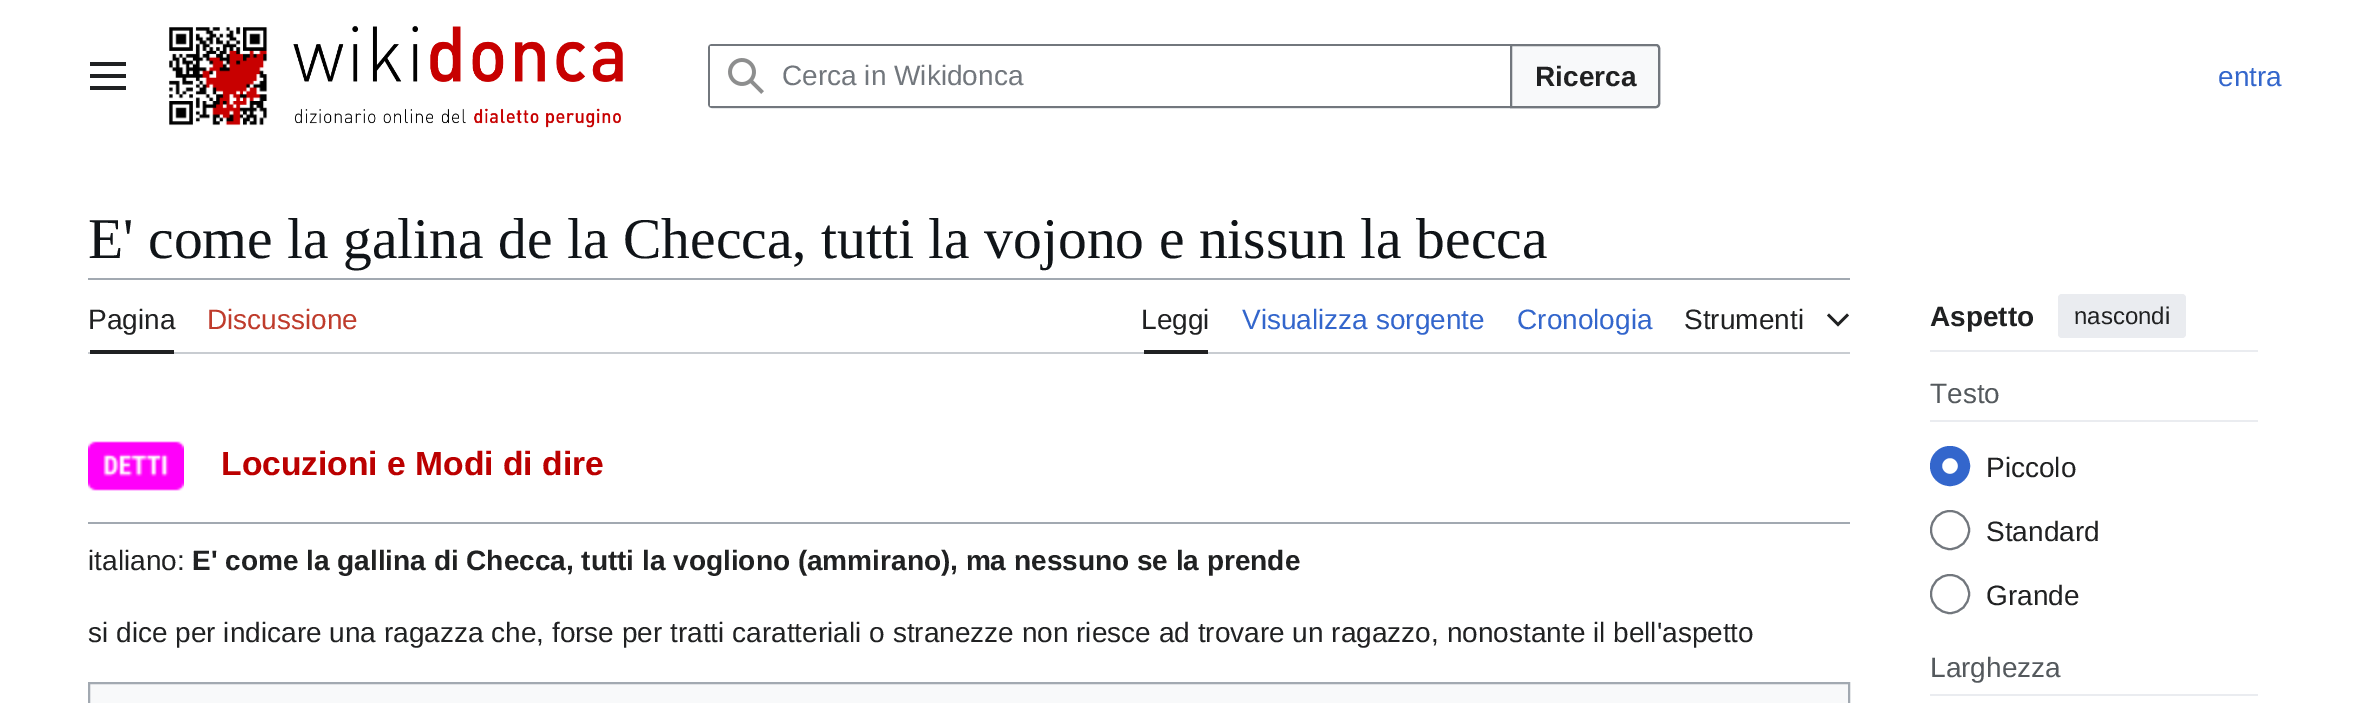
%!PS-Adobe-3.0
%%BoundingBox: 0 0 2377 703
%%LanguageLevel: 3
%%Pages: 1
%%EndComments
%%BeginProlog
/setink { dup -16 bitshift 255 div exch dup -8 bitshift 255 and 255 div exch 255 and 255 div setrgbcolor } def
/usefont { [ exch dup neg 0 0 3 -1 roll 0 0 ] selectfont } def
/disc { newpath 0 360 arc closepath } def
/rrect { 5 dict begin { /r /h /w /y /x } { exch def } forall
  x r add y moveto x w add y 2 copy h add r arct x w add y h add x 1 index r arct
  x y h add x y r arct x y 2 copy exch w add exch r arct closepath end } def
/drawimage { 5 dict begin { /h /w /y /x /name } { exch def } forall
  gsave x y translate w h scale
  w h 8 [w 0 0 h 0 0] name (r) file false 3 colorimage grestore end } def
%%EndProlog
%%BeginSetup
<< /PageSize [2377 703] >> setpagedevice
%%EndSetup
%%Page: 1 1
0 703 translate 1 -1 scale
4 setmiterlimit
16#FFFFFF setink
0 0 2377 703 rectfill
(img1.raw) 90 62 36 28 drawimage
(img2.raw) 169 27 99 99 drawimage
(img3.raw) 293 26 330 56 drawimage
(img4.raw) 294 108 327 20 drawimage
16#A2A9B1 setink
2 setlinewidth
709 45 950 62 3 rrect stroke
16#F8F9FA setink
1511 45 moveto 1656 45 lineto 1657.5 45 1659 46.5 1659 48 curveto 1659 104 lineto 1659 105.5 1657.5 107 1656 107 curveto 1511 107 lineto closepath gsave fill grestore
16#72777D setink
stroke
16#FFFFFF setink
712 44 moveto 1512 44 lineto 1512 108 lineto 712 108 lineto 710 108 708 106 708 104 curveto 708 48 lineto 708 46 710 44 712 44 curveto closepath fill
16#72777D setink
712 44 moveto 710 44 708 46 708 48 curveto 708 104 lineto 708 106 710 108 712 108 curveto 1512 108 lineto 1512 44 lineto closepath 710 46 moveto 710 106 lineto 1510 106 lineto 1510 46 lineto closepath eofill
(img5.raw) 728 58 36 36 drawimage
/LiberationSans-Regular 28 usefont
782 85 moveto (Cerca in Wikidonca) show
/LiberationSans-Bold 28 usefont
16#202122 setink
1535 86 moveto (Ricerca) show
/LiberationSans-Regular 28 usefont
16#3366CC setink
2218 86 moveto (entra) show
/LiberationSerif-Regular 57.6 usefont
16#101418 setink
88 258 moveto (E' come la galina de la Checca, tutti la vojono e nissun la becca) show
[
    [88 278 1762 2 16#A2A9B1]
    [88 352 1762 2 16#C8CCD1]
    [90 350 84 4 16#202122]
] { aload pop setink rectfill } forall
/LiberationSans-Regular 28 usefont
88 329 moveto (Pagina) show
16#BF3C2C setink
207 329 moveto (Discussione) show
16#202122 setink
1144 350 64 4 rectfill
1141 329 moveto (Leggi) show
16#3366CC setink
1242 329 moveto (Visualizza sorgente) show
1517 329 moveto (Cronologia) show
16#202122 setink
1684 329 moveto (Strumenti) show
1847 313.5 moveto 1838 322.5 lineto 1829 313.5 lineto 1827 315.5 lineto 1838 326.5 lineto 1849 315.5 lineto closepath fill
16#EAECF0 setink
1930 350 328 2 rectfill
/LiberationSans-Bold 28 usefont
16#202122 setink
1930 326 moveto (Aspetto) show
16#EAECF0 setink
2058 294 128 44 4 rrect fill
/LiberationSans-Regular 24 usefont
16#202122 setink
2074 324 moveto (nascondi) show
16#EAECF0 setink
1930 420 328 2 rectfill
/LiberationSans-Regular 28 usefont
16#54595D setink
1930 403 moveto (Testo) show
16#3366CC setink
12 setlinewidth
1950 466 14 disc stroke
16#202122 setink
1986 477 moveto (Piccolo) show
16#72777D setink
2 setlinewidth
1950 530 19 disc stroke
16#202122 setink
1986 541 moveto (Standard) show
16#72777D setink
1950 594 19 disc stroke
16#202122 setink
1986 605 moveto (Grande) show
16#EAECF0 setink
1930 694 328 2 rectfill
16#54595D setink
1930 677 moveto (Larghezza) show
(img6.raw) 88 441 96 50 drawimage
/LiberationSans-Bold 33.6 usefont
16#BB0000 setink
221 475 moveto (Locuzioni e Modi di dire) show
16#A2A9B1 setink
88 522 1762 2 rectfill
/LiberationSans-Regular 28 usefont
16#202122 setink
88 570 moveto (italiano:) show
/LiberationSans-Bold 28 usefont
192 570 moveto (E' come la gallina di Checca, tutti la vogliono \(ammirano\), ma nessuno se la prende) show
/LiberationSans-Regular 28 usefont
88 642 moveto (si dice per indicare una ragazza che, forse per tratti caratteriali o stranezze non riesce ad trovare un ragazzo, nonostante il bell'aspetto) show
16#F8F9FA setink
89 683 moveto 1849 683 lineto 1849 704 lineto 89 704 lineto closepath gsave fill grestore
16#A2A9B1 setink
stroke
showpage
%%EOF
